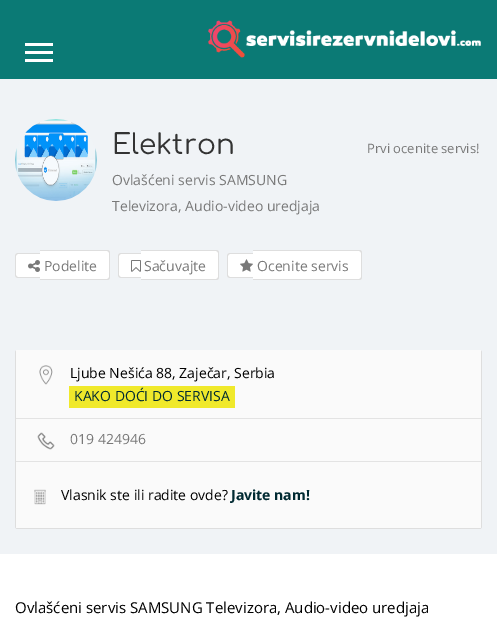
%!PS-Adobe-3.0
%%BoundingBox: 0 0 497 637
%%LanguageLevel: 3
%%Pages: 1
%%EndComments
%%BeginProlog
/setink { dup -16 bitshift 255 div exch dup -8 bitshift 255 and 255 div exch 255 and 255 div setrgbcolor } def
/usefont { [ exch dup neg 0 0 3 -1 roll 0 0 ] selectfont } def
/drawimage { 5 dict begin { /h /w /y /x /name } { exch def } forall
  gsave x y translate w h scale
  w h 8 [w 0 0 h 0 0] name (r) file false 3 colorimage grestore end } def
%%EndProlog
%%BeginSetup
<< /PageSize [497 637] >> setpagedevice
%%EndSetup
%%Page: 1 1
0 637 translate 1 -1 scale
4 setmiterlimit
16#FFFFFF setink
0 0 497 637 rectfill
[
    [0 0 497 79 16#0B7A75]
    [25 43 28 3 16#FFFFFF]
    [25 51 28 3 16#FFFFFF]
    [25 59 28 3 16#FFFFFF]
] { aload pop setink rectfill } forall
(img1.raw) 208 20 273 38 drawimage
16#F0F3F6 setink
0 79 497 475 rectfill
(img2.raw) 15 119 82 82 drawimage
/Comfortaa-Regular 28 usefont
16#333333 setink
112 154 moveto (Elektron) show
/OpenSans-Regular 14 usefont
16#797979 setink
112 185 moveto (Ovlašćeni servis SAMSUNG) show
112 211 moveto (Televizora, Audio-video uredjaja) show
/OpenSans-Regular 13 usefont
367 153 moveto (Prvi ocenite servis!) show
16#FFFFFF setink
18 253 moveto 40 253 lineto 40 278 lineto 18 278 lineto 16.5 278 15 276.5 15 275 curveto 15 256 lineto 15 254.5 16.5 253 18 253 curveto closepath fill
16#DEDEDE setink
18 253 moveto 40 253 lineto 40 278 lineto 18 278 lineto 16.5 278 15 276.5 15 275 curveto 15 256 lineto 15 254.5 16.5 253 18 253 curveto closepath 18 254 moveto 40 254 lineto 40 277 lineto 18 277 lineto 17 277 16 276 16 275 curveto 16 256 lineto 16 255 17 254 18 254 curveto closepath eofill
16#FFFFFF setink
40 250 moveto 107 250 lineto 108.5 250 110 251.5 110 253 curveto 110 277 lineto 110 278.5 108.5 280 107 280 curveto 40 280 lineto closepath fill
16#DEDEDE setink
40 250 moveto 107 250 lineto 109 250 110 251 110 253 curveto 110 277 lineto 110 279 109 280 107 280 curveto 40 280 lineto closepath 40 251 moveto 107 251 lineto 108 251 109 252 109 253 curveto 109 277 lineto 109 278 108 279 107 279 curveto 40 279 lineto closepath eofill
(img3.raw) 28 260 12 12 drawimage
/OpenSans-Regular 14 usefont
16#797979 setink
44 271 moveto (Podelite) show
16#FFFFFF setink
121 253 moveto 141 253 lineto 141 278 lineto 121 278 lineto 119.5 278 118 276.5 118 275 curveto 118 256 lineto 118 254.5 119.5 253 121 253 curveto closepath fill
16#DEDEDE setink
121 253 moveto 141 253 lineto 141 278 lineto 121 278 lineto 119.5 278 118 276.5 118 275 curveto 118 256 lineto 118 254.5 119.5 253 121 253 curveto closepath 121 254 moveto 141 254 lineto 141 277 lineto 121 277 lineto 120 277 119 276 119 275 curveto 119 256 lineto 119 255 120 254 121 254 curveto closepath eofill
16#FFFFFF setink
141 250 moveto 216 250 lineto 217.5 250 219 251.5 219 253 curveto 219 277 lineto 219 278.5 217.5 280 216 280 curveto 141 280 lineto closepath fill
16#DEDEDE setink
141 250 moveto 216 250 lineto 218 250 219 251 219 253 curveto 219 277 lineto 219 279 218 280 216 280 curveto 141 280 lineto closepath 141 251 moveto 216 251 lineto 217 251 218 252 218 253 curveto 218 277 lineto 218 278 217 279 216 279 curveto 141 279 lineto closepath eofill
(img4.raw) 131 260 10 12 drawimage
16#797979 setink
144 271 moveto (Sačuvajte) show
16#FFFFFF setink
230 253 moveto 253 253 lineto 253 278 lineto 230 278 lineto 228.5 278 227 276.5 227 275 curveto 227 256 lineto 227 254.5 228.5 253 230 253 curveto closepath fill
16#DEDEDE setink
230 253 moveto 253 253 lineto 253 278 lineto 230 278 lineto 228.5 278 227 276.5 227 275 curveto 227 256 lineto 227 254.5 228.5 253 230 253 curveto closepath 230 254 moveto 253 254 lineto 253 277 lineto 230 277 lineto 229 277 228 276 228 275 curveto 228 256 lineto 228 255 229 254 230 254 curveto closepath eofill
16#FFFFFF setink
253 250 moveto 359 250 lineto 360.5 250 362 251.5 362 253 curveto 362 277 lineto 362 278.5 360.5 280 359 280 curveto 253 280 lineto closepath fill
16#DEDEDE setink
253 250 moveto 359 250 lineto 361 250 362 251 362 253 curveto 362 277 lineto 362 279 361 280 359 280 curveto 253 280 lineto closepath 253 251 moveto 359 251 lineto 360 251 361 252 361 253 curveto 361 277 lineto 361 278 360 279 359 279 curveto 253 279 lineto closepath eofill
(img5.raw) 240 259 13 13 drawimage
16#797979 setink
257 271 moveto (Ocenite servis) show
16#DEDEDE setink
18 350 moveto 479 350 lineto 481 350 482 351 482 353 curveto 482 526 lineto 482 528 481 529 479 529 curveto 18 529 lineto 16 529 15 528 15 526 curveto 15 353 lineto 15 351 16 350 18 350 curveto closepath 18 350 moveto 479 350 lineto 480 350 481 351 481 353 curveto 481 526 lineto 481 527 480 528 479 528 curveto 18 528 lineto 17 528 16 527 16 526 curveto 16 353 lineto 16 351 17 350 18 350 curveto closepath eofill
16#FAFAFA setink
16 350 465 68 rectfill
16#E3E3E3 setink
16 418 465 1 rectfill
(img6.raw) 39 365 14 20 drawimage
16#000000 setink
70 378 moveto (Ljube Nešića 88, Zaječar, Serbia) show
16#F0E92B setink
69 386 166 22 rectfill
16#002A32 setink
74 401 moveto (KAKO DOĆI DO SERVISA) show
16#FAFAFA setink
16 419 465 42 rectfill
(img7.raw) 37 432 18 18 drawimage
16#797979 setink
70 444 moveto (019 424946) show
16#FAFAFA setink
16 462 465 66 rectfill
16#E3E3E3 setink
16 461 465 1 rectfill
(img8.raw) 34 489 12 16 drawimage
16#000000 setink
61 500 moveto (Vlasnik ste ili radite ovde?) show
/OpenSans-Bold 14 usefont
16#002A32 setink
231 500 moveto (Javite nam!) show
/OpenSans-Regular 15 usefont
16#000000 setink
15 613 moveto (Ovlašćeni servis SAMSUNG Televizora, Audio-video uredjaja) show
showpage
%%EOF
